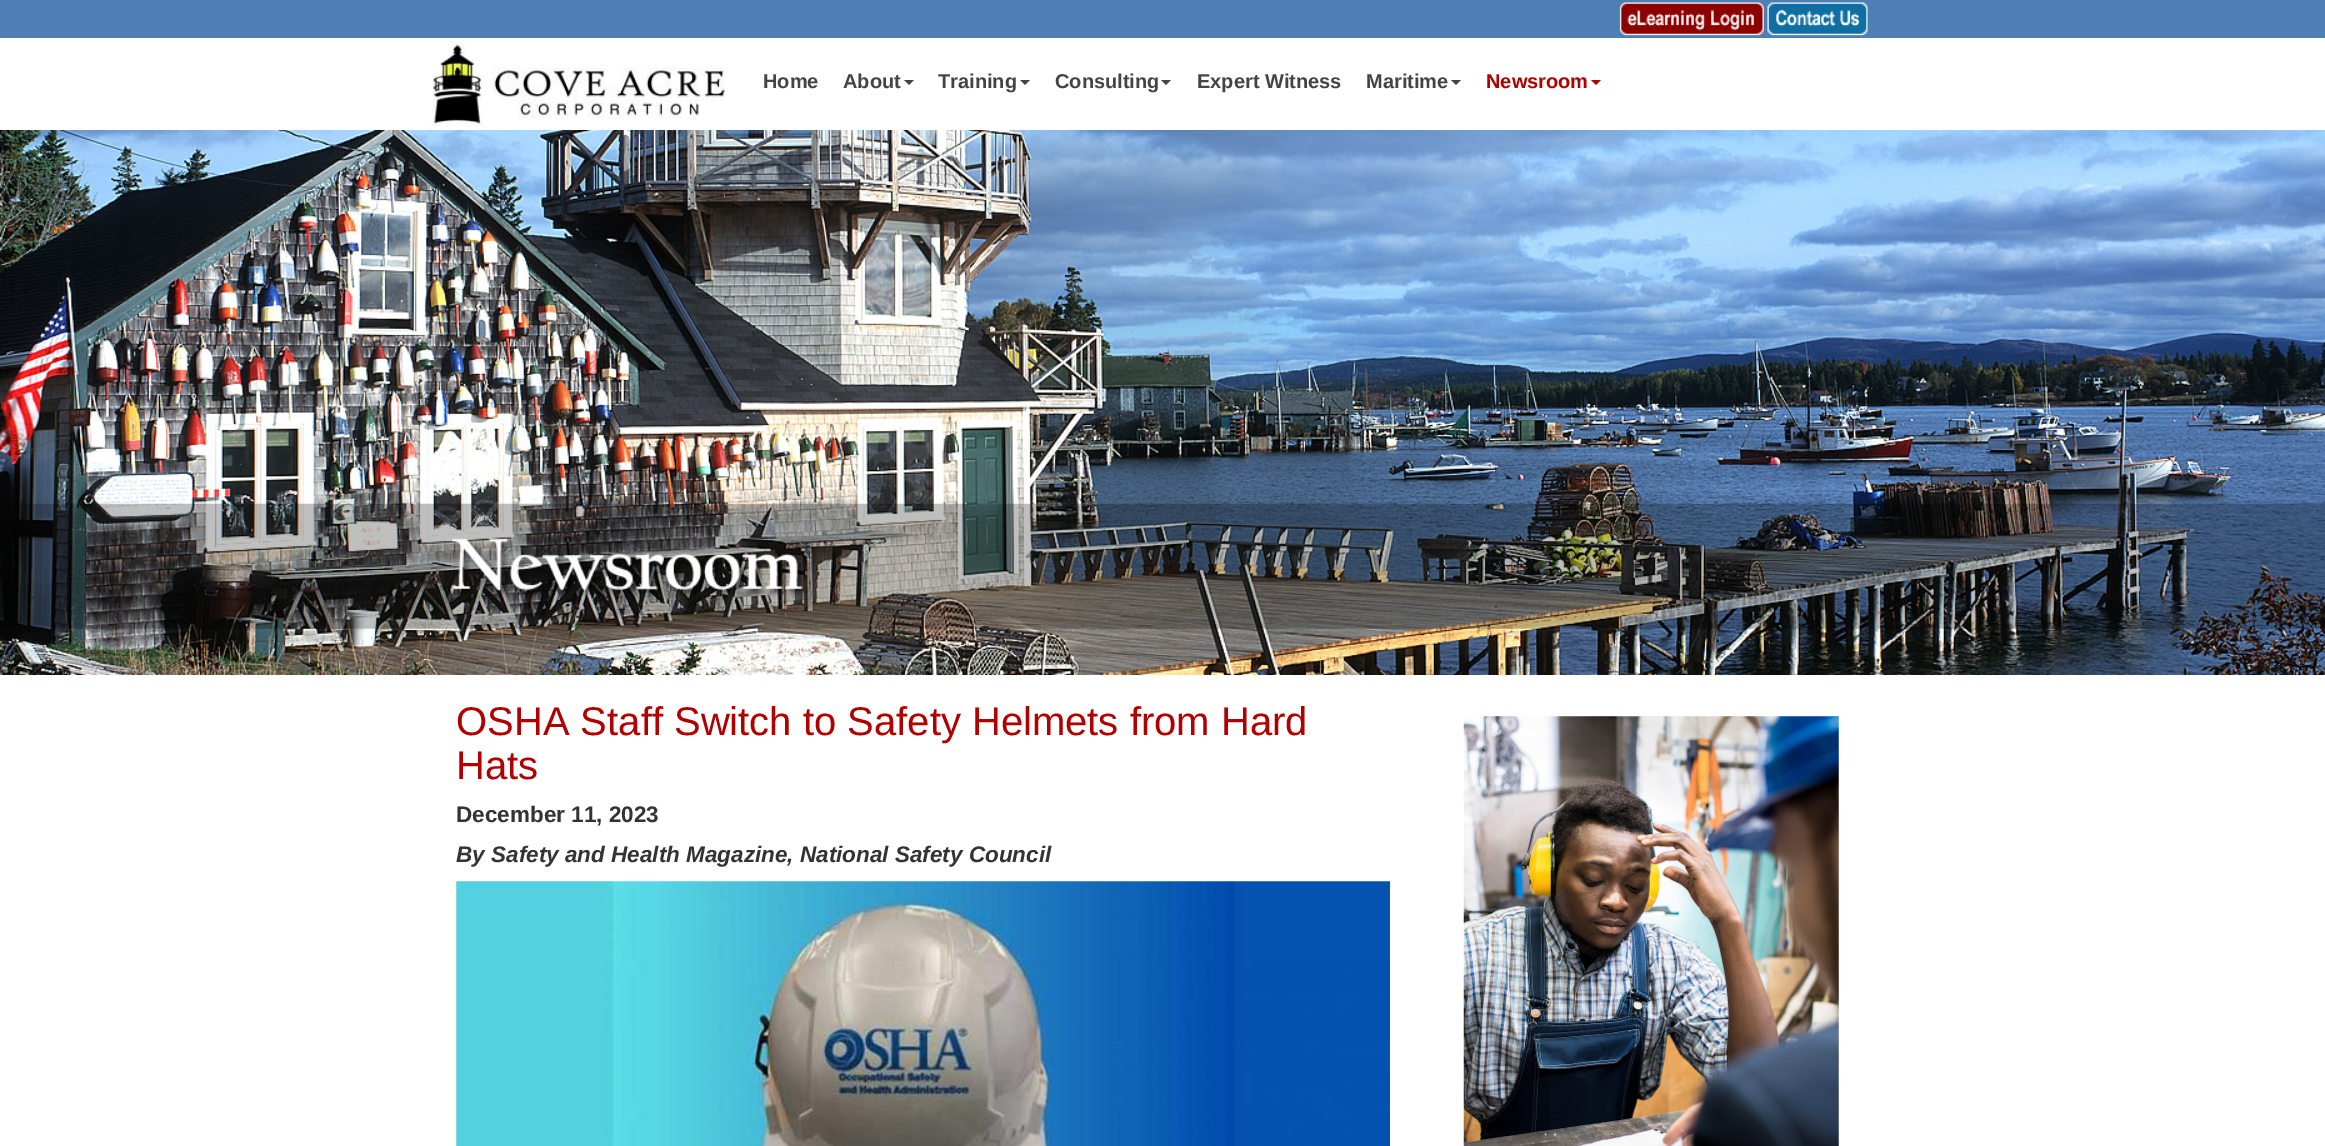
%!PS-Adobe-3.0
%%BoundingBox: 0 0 2325 1146
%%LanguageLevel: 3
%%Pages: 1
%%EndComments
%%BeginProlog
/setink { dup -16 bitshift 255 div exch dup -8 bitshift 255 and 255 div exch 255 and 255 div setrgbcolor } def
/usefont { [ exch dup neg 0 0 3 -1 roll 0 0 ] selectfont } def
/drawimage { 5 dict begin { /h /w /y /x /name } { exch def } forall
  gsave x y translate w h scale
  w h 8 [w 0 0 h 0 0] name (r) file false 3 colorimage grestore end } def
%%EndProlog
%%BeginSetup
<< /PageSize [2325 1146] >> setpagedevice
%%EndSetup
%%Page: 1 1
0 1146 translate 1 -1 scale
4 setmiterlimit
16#FFFFFF setink
0 0 2325 1146 rectfill
16#4D7EB4 setink
0 0 2325 38 rectfill
(img1.raw) 1619 2 249 34 drawimage
(img2.raw) 431 41 294 87 drawimage
/LiberationSans-Bold 20 usefont
16#444444 setink
763 88 moveto (Home) show
843 88 moveto (About) show
904 80 moveto 914 80 lineto 909 85 lineto closepath fill
938 88 moveto (Training) show
1020 80 moveto 1030 80 lineto 1025 85 lineto closepath fill
1055 88 moveto (Consulting) show
1161 80 moveto 1171 80 lineto 1166 85 lineto closepath fill
1197 88 moveto (Expert Witness) show
1366 88 moveto (Maritime) show
1451 80 moveto 1461 80 lineto 1456 85 lineto closepath fill
16#B20000 setink
1486 88 moveto (Newsroom) show
1591 80 moveto 1601 80 lineto 1596 85 lineto closepath fill
(img3.raw) 0 130 2325 545 drawimage
/LiberationSans-Regular 40 usefont
456 735 moveto (OSHA Staff Switch to Safety Helmets from Hard) show
456 779 moveto (Hats) show
/LiberationSans-Bold 22.5 usefont
16#333333 setink
456 822 moveto (December 11, 2023) show
/LiberationSans-BoldItalic 22.5 usefont
456 862 moveto (By Safety and Health Magazine, National Safety Council) show
(img4.raw) 456 881 934 265 drawimage
(img5.raw) 1463 716 376 430 drawimage
showpage
%%EOF
